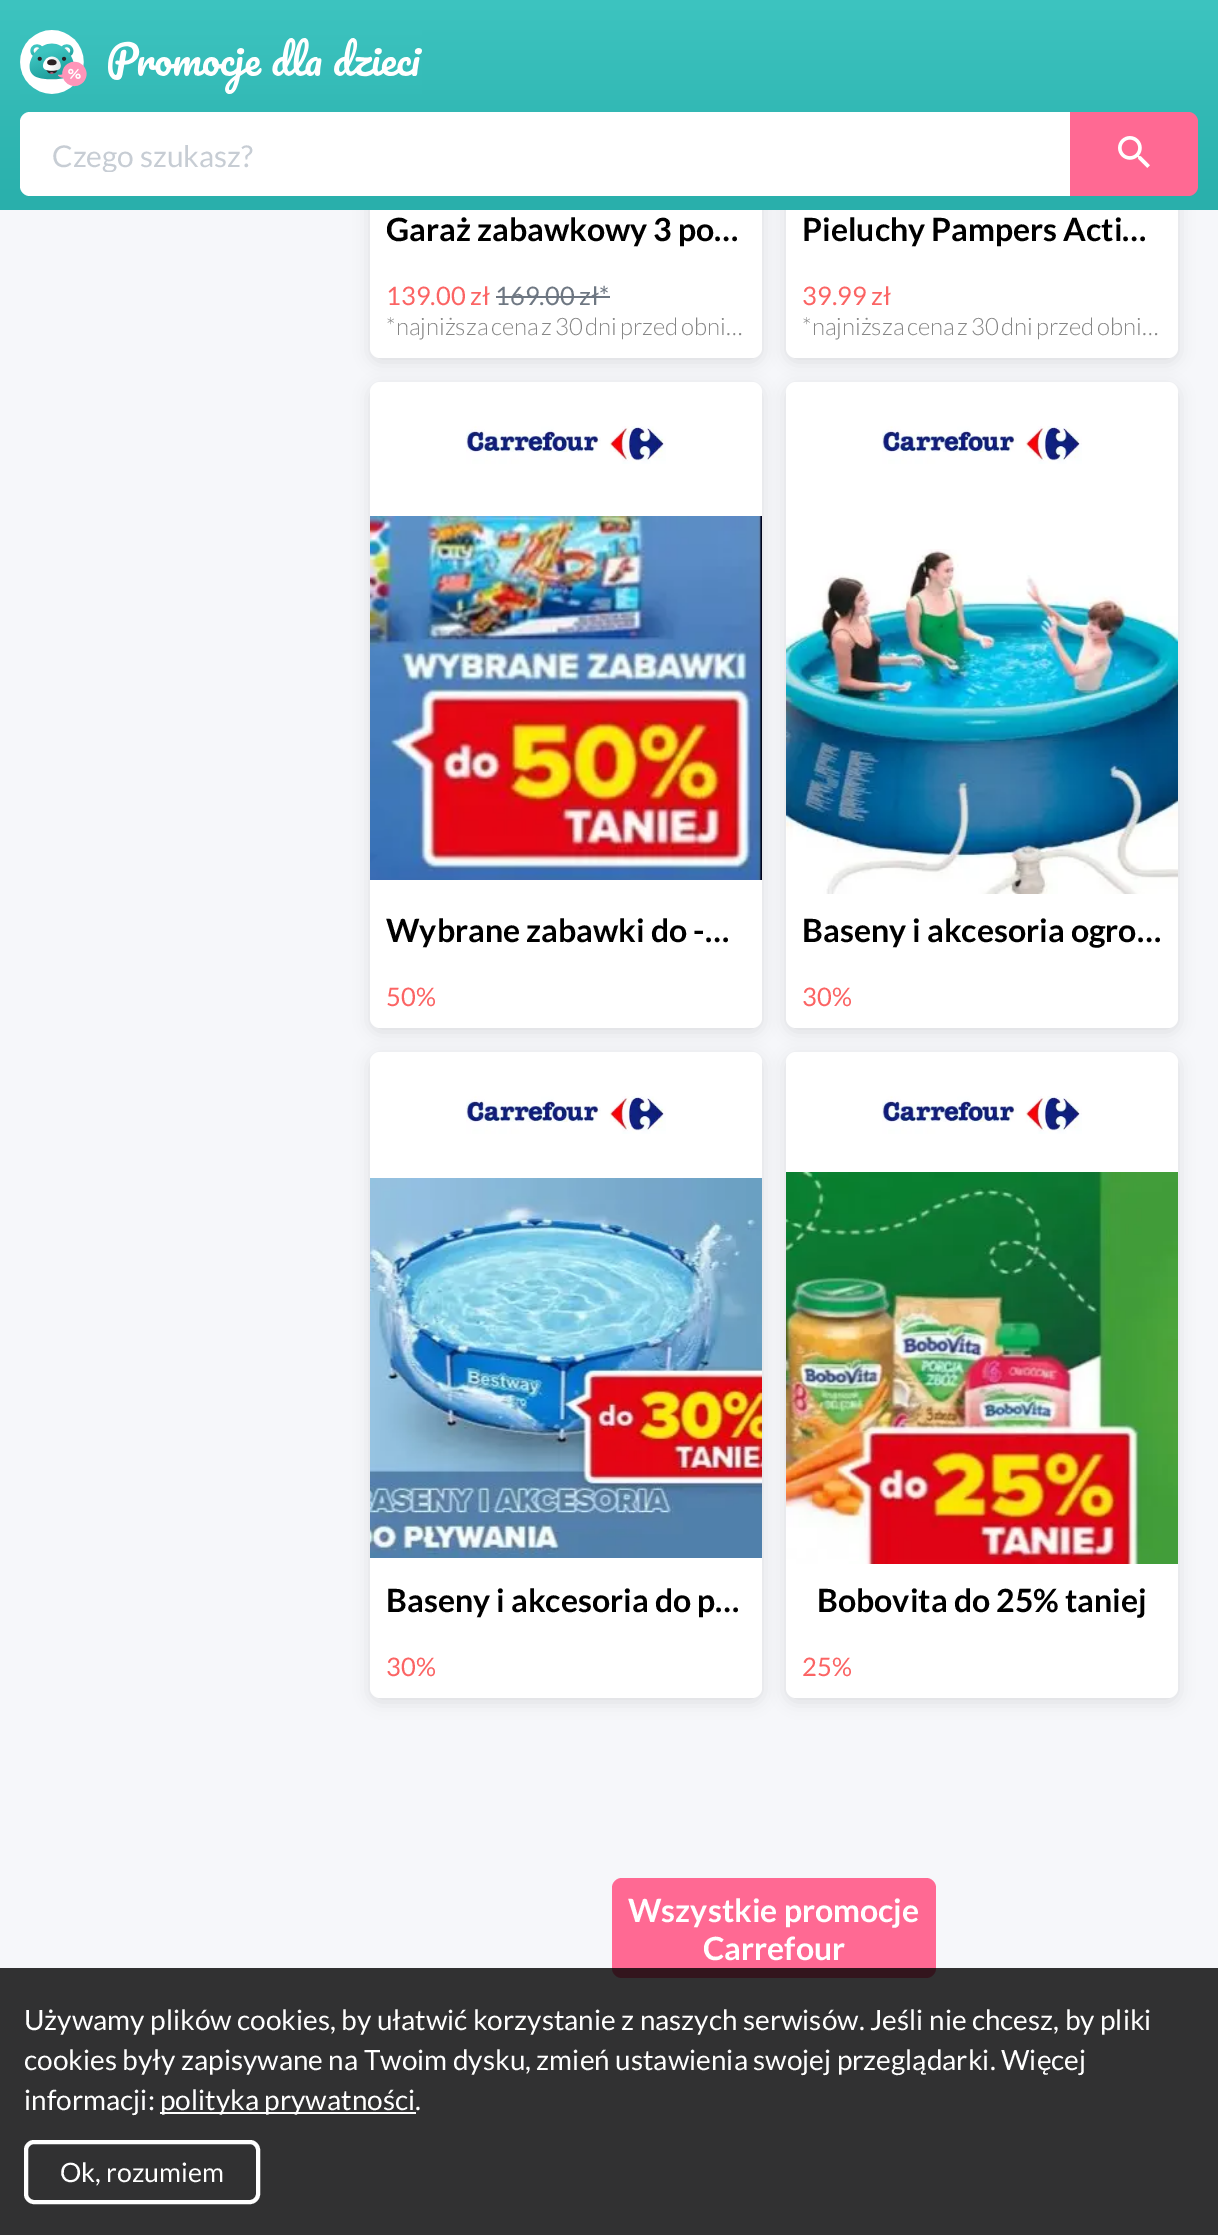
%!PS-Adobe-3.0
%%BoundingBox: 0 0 1218 2235
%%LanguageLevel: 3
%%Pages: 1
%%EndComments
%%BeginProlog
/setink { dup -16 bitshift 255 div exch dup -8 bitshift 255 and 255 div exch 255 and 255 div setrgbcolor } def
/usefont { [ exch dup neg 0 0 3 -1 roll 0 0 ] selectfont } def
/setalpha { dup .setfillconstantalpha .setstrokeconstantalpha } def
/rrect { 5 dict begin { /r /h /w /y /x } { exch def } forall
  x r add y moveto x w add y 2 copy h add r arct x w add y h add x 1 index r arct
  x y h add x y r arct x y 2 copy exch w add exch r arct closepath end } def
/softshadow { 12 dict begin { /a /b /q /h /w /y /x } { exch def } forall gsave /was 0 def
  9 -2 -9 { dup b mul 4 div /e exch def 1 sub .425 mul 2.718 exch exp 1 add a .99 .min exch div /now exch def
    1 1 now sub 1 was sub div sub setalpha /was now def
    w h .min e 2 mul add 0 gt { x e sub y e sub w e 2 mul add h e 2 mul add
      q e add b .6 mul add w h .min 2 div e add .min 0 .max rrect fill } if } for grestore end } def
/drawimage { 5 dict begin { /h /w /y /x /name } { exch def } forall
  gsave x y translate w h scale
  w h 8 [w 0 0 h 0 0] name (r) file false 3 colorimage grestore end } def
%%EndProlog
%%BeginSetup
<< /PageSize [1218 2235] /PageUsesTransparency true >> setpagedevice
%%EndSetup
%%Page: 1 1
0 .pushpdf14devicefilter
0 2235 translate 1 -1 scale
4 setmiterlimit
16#F6F7FA setink
0 0 1218 2235 rectfill
16#000000 setink
370 -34 392 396 10 8 0.1 softshadow
16#FFFFFF setink
370 -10 392 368 10 rrect fill
16#000000 setink
786 -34 392 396 10 8 0.1 softshadow
16#FFFFFF setink
786 -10 392 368 10 rrect fill
gsave 0 0 moveto 1218 0 lineto 1218 210 lineto 0 210 lineto closepath clip newpath
<< /ShadingType 2 /ColorSpace /DeviceRGB /Coords [609 0 609 210] /Extend [true true] /Function << /FunctionType 2 /Domain [0 1] /C0 [0.239 0.769 0.753] /C1 [0.161 0.686 0.671] /N 1 >> >> shfill grestore
(img1.raw) 20 30 402 64 drawimage
30 112 moveto 1070 112 lineto 1070 196 lineto 30 196 lineto 24.5 196 20 191.5 20 186 curveto 20 122 lineto 20 116.5 24.5 112 30 112 curveto closepath fill
gsave
52 136 986 36 rectclip
/Lato-Regular 30 usefont
16#C7CDD4 setink
52 167 moveto (Czego szukasz?) show
grestore
16#FF6993 setink
1070 112 moveto 1188 112 lineto 1193.5 112 1198 116.5 1198 122 curveto 1198 186 lineto 1198 191.5 1193.5 196 1188 196 curveto 1070 196 lineto closepath fill
(img2.raw) 1118 136 32 32 drawimage
/Lato-Bold 32 usefont
16#000000 setink
386 241 moveto (Garaż zabawkowy 3 po…) show
/Lato-Regular 25.5 usefont
16#FB6464 setink
386 305 moveto (139.00 zł) show
16#6E7782 setink
495 305 moveto (169.00 zł*) show
496 296 114 2 rectfill
/Lato-Light 24 usefont
16#858585 setink
386 335 moveto -2 0 32 (*najniższa cena z 30 dni przed obni…) widthshow
/Lato-Bold 32 usefont
16#000000 setink
802 241 moveto (Pieluchy Pampers Acti…) show
/Lato-Regular 25.5 usefont
16#FB6464 setink
802 305 moveto (39.99 zł) show
/Lato-Light 24 usefont
16#858585 setink
802 335 moveto -2 0 32 (*najniższa cena z 30 dni przed obni…) widthshow
16#000000 setink
370 386 392 646 10 8 0.1 softshadow
16#FFFFFF setink
370 382 392 646 10 rrect fill
(img3.raw) 466 426 200 38 drawimage
16#000000 setink
786 386 392 646 10 8 0.1 softshadow
(img4.raw) 370 516 392 364 drawimage
/Lato-Bold 32 usefont
386 942 moveto (Wybrane zabawki do -…) show
/Lato-Regular 25.5 usefont
16#FB6464 setink
386 1006 moveto (50%) show
16#FFFFFF setink
786 382 392 646 10 rrect fill
(img5.raw) 882 426 200 38 drawimage
(img6.raw) 786 549 392 345 drawimage
/Lato-Bold 32 usefont
16#000000 setink
802 942 moveto (Baseny i akcesoria ogro…) show
/Lato-Regular 25.5 usefont
16#FB6464 setink
802 1006 moveto (30%) show
16#000000 setink
370 1056 392 646 10 8 0.1 softshadow
16#FFFFFF setink
370 1052 392 646 10 rrect fill
(img3.raw) 466 1096 200 38 drawimage
16#000000 setink
786 1056 392 646 10 8 0.1 softshadow
(img7.raw) 370 1178 392 380 drawimage
/Lato-Bold 32 usefont
386 1612 moveto (Baseny i akcesoria do p…) show
/Lato-Regular 25.5 usefont
16#FB6464 setink
386 1676 moveto (30%) show
16#FFFFFF setink
786 1052 392 646 10 rrect fill
(img5.raw) 882 1096 200 38 drawimage
(img8.raw) 786 1172 392 392 drawimage
/Lato-Bold 32 usefont
16#000000 setink
817 1612 moveto (Bobovita do 25% taniej) show
/Lato-Regular 25.5 usefont
16#FB6464 setink
802 1676 moveto (25%) show
16#FF6993 setink
612 1878 324 100 10 rrect fill
/Lato-Bold 32 usefont
16#FFFFFF setink
628 1922 moveto (Wszystkie promocje) show
703 1960 moveto (Carrefour) show
0.8 setalpha
16#000000 setink
0 1968 1218 267 rectfill
/Lato-Regular 28 usefont
1 setalpha
16#FFFFFF setink
[
    [(Używamy plików cookies, by ułatwić korzystanie z naszych serwisów. Jeśli nie chcesz, by pliki) 24 2030]
    [(cookies były zapisywane na Twoim dysku, zmień ustawienia swojej przeglądarki. Więcej) 24 2070]
    [(informacji:) 24 2110]
] { aload pop moveto show } forall
160 2112 256 2 rectfill
160 2110 moveto (polityka prywatności.) show
4 setlinewidth
26 2142 232 60 8 rrect stroke
/Lato-Regular 26.75 usefont
60 2182 moveto (Ok, rozumiem) show
.poppdf14devicefilter showpage
%%EOF
